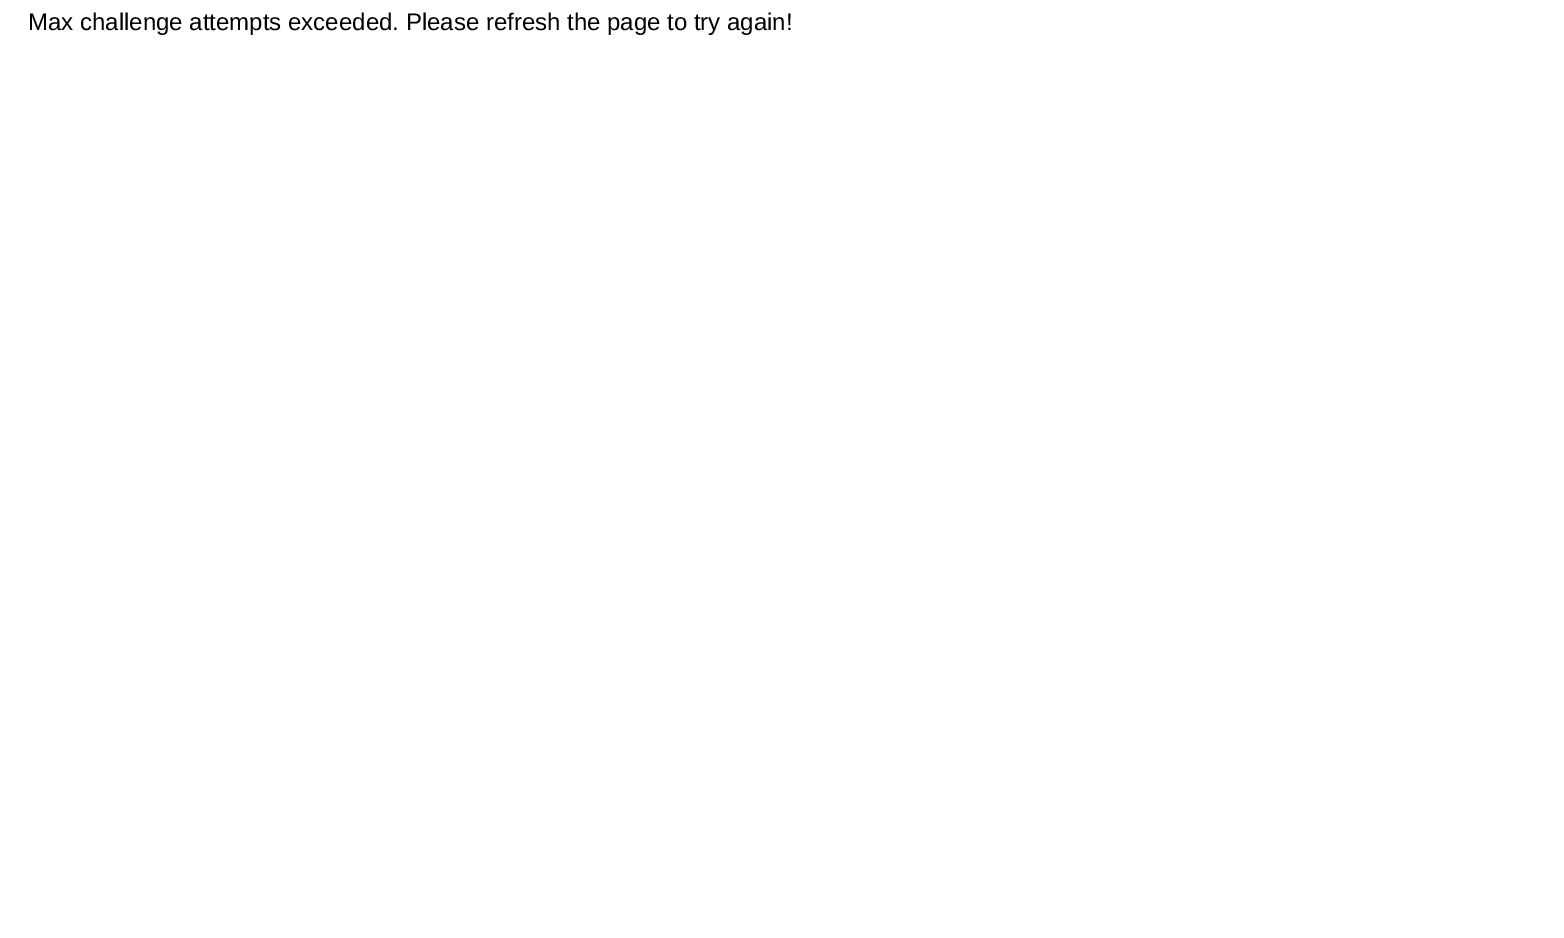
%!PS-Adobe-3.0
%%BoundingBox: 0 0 1564 938
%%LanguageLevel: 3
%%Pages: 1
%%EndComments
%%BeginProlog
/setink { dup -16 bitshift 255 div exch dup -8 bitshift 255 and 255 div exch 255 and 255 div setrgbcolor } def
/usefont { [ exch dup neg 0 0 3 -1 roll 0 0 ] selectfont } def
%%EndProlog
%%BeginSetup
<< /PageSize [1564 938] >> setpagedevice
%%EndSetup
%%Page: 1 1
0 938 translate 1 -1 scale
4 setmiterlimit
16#FFFFFF setink
0 0 1564 938 rectfill
/LiberationSans-Regular 24 usefont
16#000000 setink
28 30 moveto (Max challenge attempts exceeded. Please refresh the page to try again!) show
showpage
%%EOF
